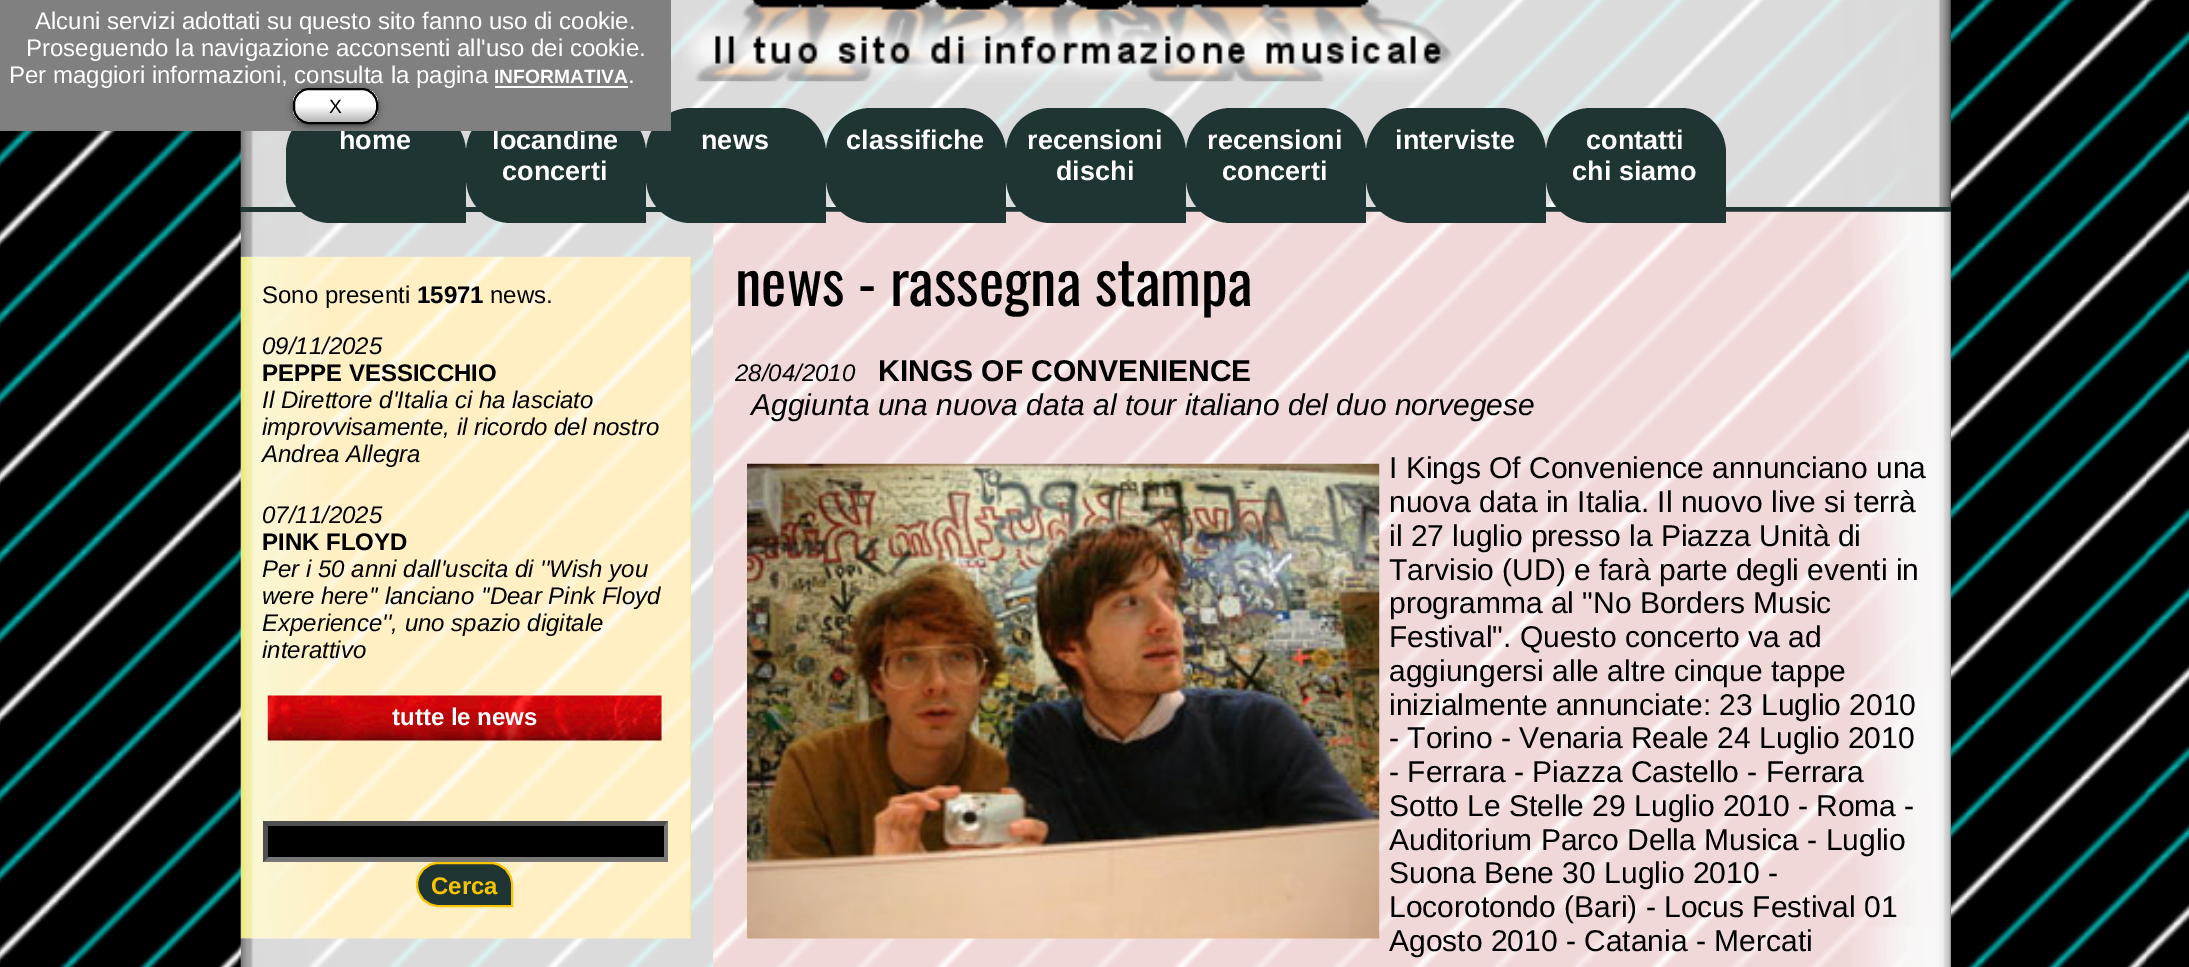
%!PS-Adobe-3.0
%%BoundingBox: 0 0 2189 967
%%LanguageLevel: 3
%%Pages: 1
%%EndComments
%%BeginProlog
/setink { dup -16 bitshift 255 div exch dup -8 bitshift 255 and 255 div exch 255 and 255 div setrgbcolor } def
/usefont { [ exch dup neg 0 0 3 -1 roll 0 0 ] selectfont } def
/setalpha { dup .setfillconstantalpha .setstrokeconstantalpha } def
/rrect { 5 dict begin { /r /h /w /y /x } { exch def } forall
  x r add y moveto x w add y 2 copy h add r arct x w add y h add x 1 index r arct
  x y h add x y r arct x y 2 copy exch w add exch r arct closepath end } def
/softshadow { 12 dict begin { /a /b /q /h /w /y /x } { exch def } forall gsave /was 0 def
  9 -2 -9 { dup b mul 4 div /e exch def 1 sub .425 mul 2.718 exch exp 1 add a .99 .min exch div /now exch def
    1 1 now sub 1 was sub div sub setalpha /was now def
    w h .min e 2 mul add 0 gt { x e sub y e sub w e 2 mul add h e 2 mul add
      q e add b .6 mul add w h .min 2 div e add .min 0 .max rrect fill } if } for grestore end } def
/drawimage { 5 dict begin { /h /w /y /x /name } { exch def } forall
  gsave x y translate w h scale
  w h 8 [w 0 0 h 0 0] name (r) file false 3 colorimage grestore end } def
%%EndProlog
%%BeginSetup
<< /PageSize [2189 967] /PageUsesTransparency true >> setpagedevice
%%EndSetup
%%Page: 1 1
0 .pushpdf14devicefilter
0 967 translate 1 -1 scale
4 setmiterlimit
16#FFFFFF setink
0 0 2189 967 rectfill
(img1.raw) 0 0 2189 967 drawimage
16#000000 setink
241 0 1710 967 rectfill
(img2.raw) 240 0 1711 967 drawimage
(img3.raw) 682 0 770 82 drawimage
16#1F3534 setink
241 207 1710 5 rectfill
331 108 moveto 421 108 lineto 446 108 466 128 466 153 curveto 466 223 lineto 331 223 lineto 306 223 286 203 286 178 curveto 286 153 lineto 286 128 306 108 331 108 curveto closepath fill
/LiberationSans-Bold 27 usefont
16#FFFFFF setink
339 149 moveto (home) show
16#1F3534 setink
511 108 moveto 601 108 lineto 626 108 646 128 646 153 curveto 646 223 lineto 511 223 lineto 486 223 466 203 466 178 curveto 466 153 lineto 466 128 486 108 511 108 curveto closepath fill
16#FFFFFF setink
492 149 moveto (locandine) show
(img6.raw) 713 211 1238 756 drawimage
16#1F3534 setink
691 108 moveto 781 108 lineto 806 108 826 128 826 153 curveto 826 223 lineto 691 223 lineto 666 223 646 203 646 178 curveto 646 153 lineto 646 128 666 108 691 108 curveto closepath fill
16#808080 setink
0 0 671 131 rectfill
/LiberationSans-Regular 24 usefont
16#FFFFFF setink
[
    [(Alcuni servizi adottati su questo sito fanno uso di cookie.) 35 29]
    [(Proseguendo la navigazione acconsenti all'uso dei cookie.) 26 56]
    [(Per maggiori informazioni, consulta la pagina) 9 83]
] { aload pop moveto show } forall
/LiberationSans-Bold 19.25 usefont
494 83 moveto (INFORMATIVA) show
495 86 133 2 rectfill
/LiberationSans-Regular 24 usefont
628 83 moveto (.) show
16#000000 setink
293 90 85 36 16 3.5 0.5 softshadow
gsave
293 88 85 36 16 rrect clip newpath
gsave 293 90 moveto 378 90 lineto 378 122 lineto 293 122 lineto closepath clip newpath
<< /ShadingType 2 /ColorSpace /DeviceRGB /Coords [295 90 295 122] /Extend [true true] /Function << /FunctionType 3 /Domain [0 1] /Functions [<< /FunctionType 2 /Domain [0 1] /C0 [1 1 1] /C1 [1 1 1] /N 1 >> << /FunctionType 2 /Domain [0 1] /C0 [1 1 1] /C1 [0.71 0.71 0.71] /N 1 >>] /Bounds [0.5] /Encode [0 1 0 1] >> >> shfill grestore
grestore
2 setlinewidth
294 89 83 34 15 rrect stroke
/LiberationSans-Regular 19.25 usefont
329 113 moveto (X) show
/LiberationSans-Bold 27 usefont
16#FFFFFF setink
502 180 moveto (concerti) show
701 149 moveto (news) show
16#1F3534 setink
871 108 moveto 961 108 lineto 986 108 1006 128 1006 153 curveto 1006 223 lineto 871 223 lineto 846 223 826 203 826 178 curveto 826 153 lineto 826 128 846 108 871 108 curveto closepath fill
16#FFFFFF setink
846 149 moveto (classifiche) show
16#1F3534 setink
1051 108 moveto 1141 108 lineto 1166 108 1186 128 1186 153 curveto 1186 223 lineto 1051 223 lineto 1026 223 1006 203 1006 178 curveto 1006 153 lineto 1006 128 1026 108 1051 108 curveto closepath fill
16#FFFFFF setink
1027 149 moveto (recensioni) show
1056 180 moveto (dischi) show
16#1F3534 setink
1231 108 moveto 1321 108 lineto 1346 108 1366 128 1366 153 curveto 1366 223 lineto 1231 223 lineto 1206 223 1186 203 1186 178 curveto 1186 153 lineto 1186 128 1206 108 1231 108 curveto closepath fill
16#FFFFFF setink
1207 149 moveto (recensioni) show
1222 180 moveto (concerti) show
16#1F3534 setink
1411 108 moveto 1501 108 lineto 1526 108 1546 128 1546 153 curveto 1546 223 lineto 1411 223 lineto 1386 223 1366 203 1366 178 curveto 1366 153 lineto 1366 128 1386 108 1411 108 curveto closepath fill
16#FFFFFF setink
1395 149 moveto (interviste) show
16#1F3534 setink
1591 108 moveto 1681 108 lineto 1706 108 1726 128 1726 153 curveto 1726 223 lineto 1591 223 lineto 1566 223 1546 203 1546 178 curveto 1546 153 lineto 1546 128 1566 108 1591 108 curveto closepath fill
16#FFFFFF setink
1586 149 moveto (contatti) show
1572 180 moveto (chi siamo) show
16#D7D511 setink
241 257 450 681 rectfill
(img4.raw) 240 256 451 683 drawimage
/LiberationSans-Regular 24 usefont
16#000000 setink
262 303 moveto (Sono presenti) show
/LiberationSans-Bold 24 usefont
417 303 moveto (15971) show
/LiberationSans-Regular 24 usefont
490 303 moveto (news.) show
/LiberationSans-Italic 24 usefont
262 354 moveto (09/11/2025) show
/LiberationSans-Bold 24 usefont
262 381 moveto (PEPPE VESSICCHIO) show
/LiberationSans-Italic 24 usefont
[
    [(Il Direttore d'Italia ci ha lasciato) 262 408]
    [(improvvisamente, il ricordo del nostro) 262 435]
    [(Andrea Allegra) 262 462]
    [(07/11/2025) 262 523]
] { aload pop moveto show } forall
/LiberationSans-Bold 24 usefont
262 550 moveto (PINK FLOYD) show
/LiberationSans-Italic 24 usefont
[
    [(Per i 50 anni dall'uscita di ''Wish you) 262 577]
    [(were here'' lanciano ''Dear Pink Floyd) 262 604]
    [(Experience'', uno spazio digitale) 262 631]
    [(interattivo) 262 658]
] { aload pop moveto show } forall
(img5.raw) 267 695 395 46 drawimage
/LiberationSans-Bold 24 usefont
16#FFFFFF setink
392 725 moveto (tutte le news) show
16#000000 setink
263 821 405 41 rectfill
16#4F4F4F setink
263 821 moveto 668 821 lineto 664 826 lineto 268 826 lineto closepath fill
16#767676 setink
668 821 moveto 668 862 lineto 664 857 lineto 664 826 lineto closepath fill
668 862 moveto 263 862 lineto 268 857 lineto 664 857 lineto closepath fill
16#4F4F4F setink
263 862 moveto 263 821 lineto 268 826 lineto 268 857 lineto closepath fill
16#1F3534 setink
438.5 863 moveto 490.5 863 lineto 502.5 863 512 872.5 512 884.5 curveto 512 906 lineto 438.5 906 lineto 426.5 906 417 896.5 417 884.5 curveto 417 872.5 426.5 863 438.5 863 curveto closepath gsave fill grestore
16#F8C300 setink
stroke
431 894 moveto (Cerca) show
/Oswald-Regular 60 usefont
16#000000 setink
735 306 moveto (news - rassegna stampa) show
/LiberationSans-Italic 24 usefont
735 381 moveto (28/04/2010) show
/LiberationSans-Bold 30 usefont
878 381 moveto (KINGS OF CONVENIENCE) show
/LiberationSans-Italic 30 usefont
751 415 moveto (Aggiunta una nuova data al tour italiano del duo norvegese) show
(img7.raw) 747 463 633 476 drawimage
/LiberationSans-Regular 30 usefont
[
    [(I Kings Of Convenience annunciano una) 1389 478]
    [(nuova data in Italia. Il nuovo live si terrà) 1389 512]
    [(il 27 luglio presso la Piazza Unità di) 1389 546]
    [(Tarvisio \(UD\) e farà parte degli eventi in) 1389 580]
    [(programma al "No Borders Music) 1389 613]
    [(Festival". Questo concerto va ad) 1389 647]
    [(aggiungersi alle altre cinque tappe) 1389 681]
    [(inizialmente annunciate: 23 Luglio 2010) 1389 715]
    [(- Torino - Venaria Reale 24 Luglio 2010) 1389 748]
    [(- Ferrara - Piazza Castello - Ferrara) 1389 782]
    [(Sotto Le Stelle 29 Luglio 2010 - Roma -) 1389 816]
    [(Auditorium Parco Della Musica - Luglio) 1389 850]
    [(Suona Bene 30 Luglio 2010 -) 1389 883]
    [(Locorotondo \(Bari\) - Locus Festival 01) 1389 917]
    [(Agosto 2010 - Catania - Mercati) 1389 951]
] { aload pop moveto show } forall
.poppdf14devicefilter showpage
%%EOF
